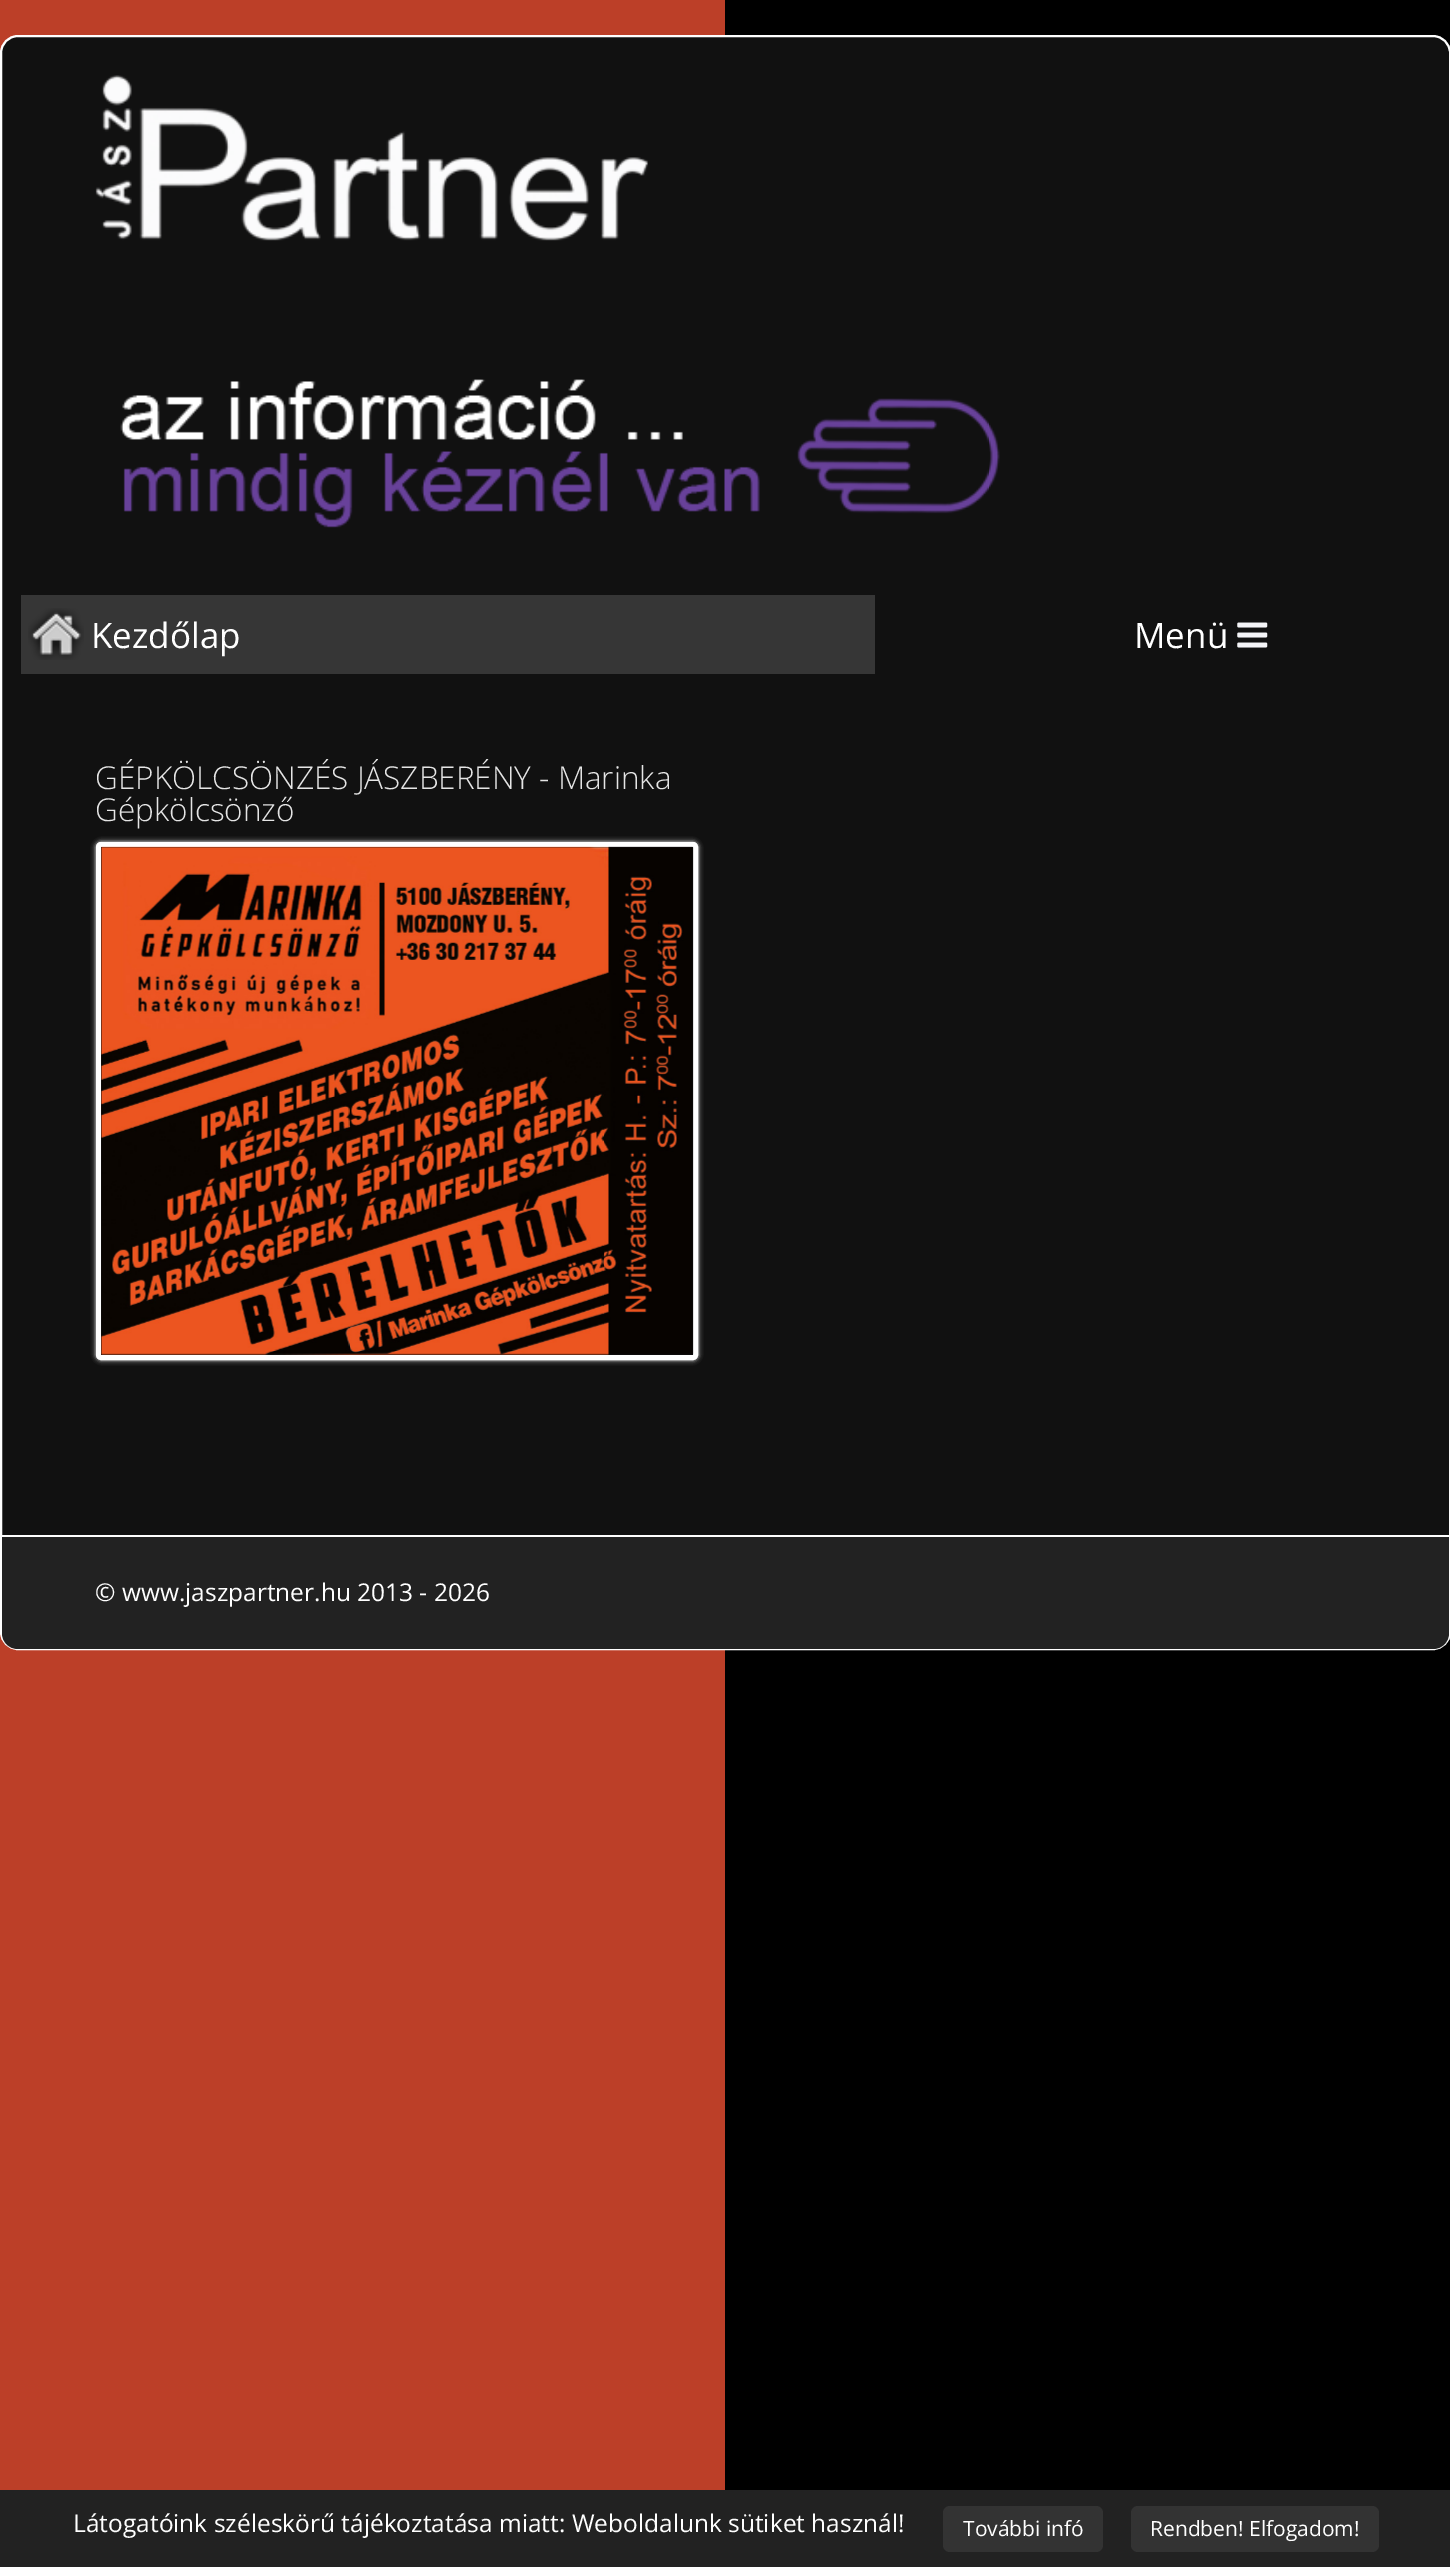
%!PS-Adobe-3.0
%%BoundingBox: 0 0 1450 2567
%%LanguageLevel: 3
%%Pages: 1
%%EndComments
%%BeginProlog
/setink { dup -16 bitshift 255 div exch dup -8 bitshift 255 and 255 div exch 255 and 255 div setrgbcolor } def
/usefont { [ exch dup neg 0 0 3 -1 roll 0 0 ] selectfont } def
/setalpha { dup .setfillconstantalpha .setstrokeconstantalpha } def
/rrect { 5 dict begin { /r /h /w /y /x } { exch def } forall
  x r add y moveto x w add y 2 copy h add r arct x w add y h add x 1 index r arct
  x y h add x y r arct x y 2 copy exch w add exch r arct closepath end } def
/softshadow { 12 dict begin { /a /b /q /h /w /y /x } { exch def } forall gsave /was 0 def
  9 -2 -9 { dup b mul 4 div /e exch def 1 sub .425 mul 2.718 exch exp 1 add a .99 .min exch div /now exch def
    1 1 now sub 1 was sub div sub setalpha /was now def
    w h .min e 2 mul add 0 gt { x e sub y e sub w e 2 mul add h e 2 mul add
      q e add b .6 mul add w h .min 2 div e add .min 0 .max rrect fill } if } for grestore end } def
/drawimage { 5 dict begin { /h /w /y /x /name } { exch def } forall
  gsave x y translate w h scale
  w h 8 [w 0 0 h 0 0] name (r) file false 3 colorimage grestore end } def
%%EndProlog
%%BeginSetup
<< /PageSize [1450 2567] /PageUsesTransparency true >> setpagedevice
%%EndSetup
%%Page: 1 1
0 .pushpdf14devicefilter
0 2567 translate 1 -1 scale
4 setmiterlimit
16#BC3F28 setink
0 0 1450 2567 rectfill
16#000000 setink
725 0 725 2490 rectfill
16#111111 setink
1 36 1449 1613 17 rrect gsave fill grestore
16#FFFFFF setink
2 setlinewidth
stroke
(img1.raw) 95 75 553 166 drawimage
(img2.raw) 120 379 880 149 drawimage
16#363636 setink
21 595 854 79 rectfill
(img3.raw) 28 608 56 52 drawimage
/OpenSans-Regular 35 usefont
16#FFFFFF setink
91 648 moveto (Kezdőlap) show
1134 648 moveto (Menü) show
(img4.raw) 1237 622 31 26 drawimage
/OpenSans-Light 31.5 usefont
16#E5E5E5 setink
95 789 moveto (GÉPKÖLCSÖNZÉS JÁSZBERÉNY - Marinka) show
95 821 moveto (Gépkölcsönző) show
16#FFFFFF setink
96 842 602 518 5 2.5 1 softshadow
5 setlinewidth
98.5 844.5 597 513 2.5 rrect stroke
(img5.raw) 101 846 593 509 drawimage
16#222222 setink
2 1535 moveto 1449 1535 lineto 1449 1633 lineto 1449 1642 1442 1649 1433 1649 curveto 18 1649 lineto 9 1649 2 1642 2 1633 curveto closepath fill
16#FFFFFF setink
2 1535 1447 2 rectfill
/OpenSans-Regular 24.5 usefont
95 1601 moveto (© www.jaszpartner.hu 2013 - 2026) show
16#222222 setink
0 2490 1450 77 rectfill
16#FFFFFF setink
73 2532 moveto (Látogatóink széleskörű tájékoztatása miatt: Weboldalunk sütiket használ!) show
16#333333 setink
943 2506 160 46 7 rrect fill
/OpenSans-Regular 21 usefont
16#FFFFFF setink
963 2536 moveto (További infó) show
16#333333 setink
1131 2506 248 46 7 rrect fill
16#FFFFFF setink
1150 2536 moveto (Rendben! Elfogadom!) show
.poppdf14devicefilter showpage
%%EOF
